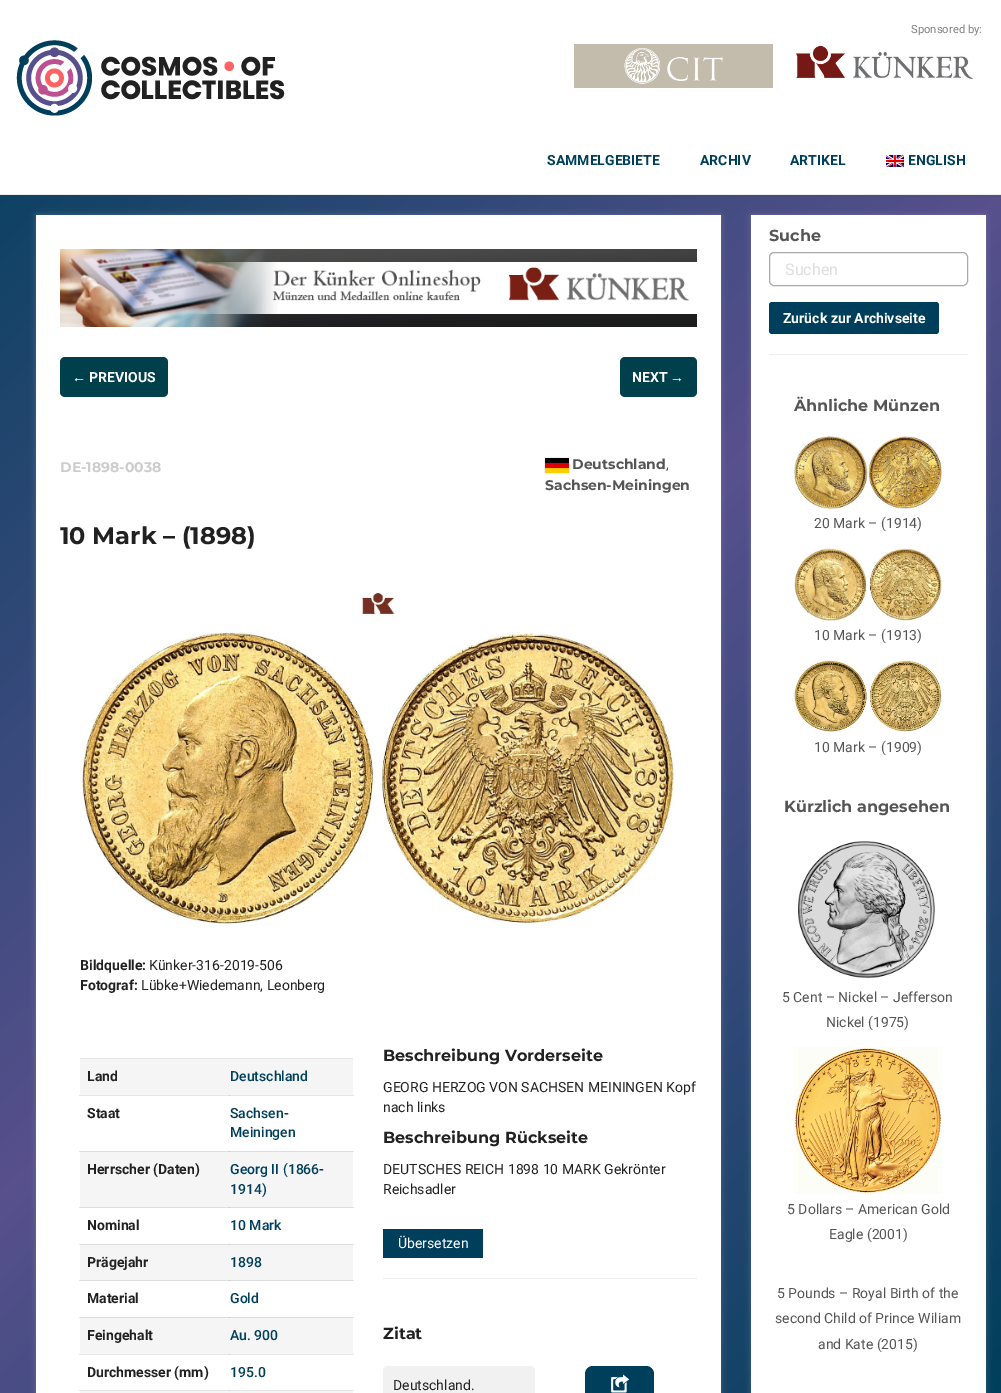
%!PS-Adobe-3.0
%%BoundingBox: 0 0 1001 1393
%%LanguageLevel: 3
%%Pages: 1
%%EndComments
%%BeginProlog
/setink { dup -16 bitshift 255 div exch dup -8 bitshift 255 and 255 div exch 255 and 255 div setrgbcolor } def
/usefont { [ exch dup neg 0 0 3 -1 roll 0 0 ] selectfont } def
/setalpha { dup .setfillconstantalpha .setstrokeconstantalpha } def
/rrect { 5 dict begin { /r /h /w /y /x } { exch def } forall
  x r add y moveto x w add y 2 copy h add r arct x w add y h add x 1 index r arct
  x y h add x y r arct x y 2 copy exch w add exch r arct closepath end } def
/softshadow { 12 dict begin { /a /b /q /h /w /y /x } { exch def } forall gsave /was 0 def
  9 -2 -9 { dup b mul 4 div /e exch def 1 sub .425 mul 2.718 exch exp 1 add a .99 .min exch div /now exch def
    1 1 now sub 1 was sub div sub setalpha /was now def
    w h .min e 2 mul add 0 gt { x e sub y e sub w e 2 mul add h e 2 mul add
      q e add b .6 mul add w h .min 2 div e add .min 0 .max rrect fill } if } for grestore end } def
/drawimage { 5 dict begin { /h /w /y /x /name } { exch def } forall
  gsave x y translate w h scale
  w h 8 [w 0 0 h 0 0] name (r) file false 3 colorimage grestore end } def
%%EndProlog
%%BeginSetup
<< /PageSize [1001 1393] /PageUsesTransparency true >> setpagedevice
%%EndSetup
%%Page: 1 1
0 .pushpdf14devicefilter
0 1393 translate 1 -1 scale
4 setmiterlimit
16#FFFFFF setink
0 0 1001 1393 rectfill
gsave 0 195 moveto 1001 195 lineto 1001 1393 lineto 0 1393 lineto closepath clip newpath
<< /ShadingType 2 /ColorSpace /DeviceRGB /Coords [-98 98 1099 1295] /Extend [true true] /Function << /FunctionType 3 /Domain [0 1] /Functions [<< /FunctionType 2 /Domain [0 1] /C0 [0 0.247 0.361] /C1 [0.345 0.314 0.553] /N 1 >> << /FunctionType 2 /Domain [0 1] /C0 [0.345 0.314 0.553] /C1 [0 0.247 0.361] /N 1 >>] /Bounds [0.5] /Encode [0 1 0 1] >> >> shfill grestore
16#333333 setink
0 0 1001 195 0 3 0.25 softshadow
16#FFFFFF setink
0 0 1001 194 rectfill
16#EEEEEE setink
0 194 1001 1 rectfill
/Roboto-Regular 11.25 usefont
16#808080 setink
911 33 moveto (Sponsored by:) show
(img1.raw) 574 44 199 44 drawimage
(img2.raw) 795 44 178 35 drawimage
(img3.raw) 16 40 269 76 drawimage
/Roboto-Bold 14 usefont
16#003F5C setink
[
    [(SAMMELGEBIETE) 547 165]
    [(ARCHIV) 700 165]
    [(ARTIKEL) 790 165]
] { aload pop moveto show } forall
(img4.raw) 886 155 18 12 drawimage
908 165 moveto (ENGLISH) show
16#CCCCCC setink
36 215 685 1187 0 3 0.25 softshadow
[
    [36 215 685 1178 16#FFFFFF]
    [79 1095 275 1 16#E6E6E6]
    [79 1151 1 1 16#E6E6E6]
    [353 1151 1 1 16#E6E6E6]
    [79 1207 1 1 16#E6E6E6]
    [353 1207 1 1 16#E6E6E6]
    [79 1244 1 1 16#E6E6E6]
    [353 1244 1 1 16#E6E6E6]
    [79 1280 1 1 16#E6E6E6]
    [353 1280 1 1 16#E6E6E6]
    [79 1317 1 1 16#E6E6E6]
    [353 1317 1 1 16#E6E6E6]
    [79 1354 275 1 16#E6E6E6]
    [79 1390 275 1 16#E6E6E6]
] { aload pop setink rectfill } forall
(img5.raw) 60 249 637 78 drawimage
16#003F4C setink
60 357 108 40 5 rrect fill
/LiberationSans-Bold 14 usefont
16#FFFFFF setink
72 382 moveto (←) show
/Roboto-Bold 14 usefont
89 382 moveto (PREVIOUS) show
16#003F4C setink
620 357 77 40 5 rrect fill
16#FFFFFF setink
632 382 moveto (NEXT) show
/LiberationSans-Bold 14 usefont
670 382 moveto (→) show
/Montserrat-Bold 14 usefont
16#CCCCCC setink
60 472 moveto (DE-1898-0038) show
545 458 24 15 0 0.5 1 softshadow
(img6.raw) 545 458 24 15 drawimage
16#555555 setink
572 469 moveto (Deutschland) show
/Roboto-Regular 14 usefont
666 469 moveto (,) show
/Montserrat-Bold 14 usefont
545 490 moveto (Sachsen-Meiningen) show
/Montserrat-Bold 24 usefont
16#212121 setink
60 544 moveto (10 Mark – \(1898\)) show
(img7.raw) 80 593 596 332 drawimage
/Roboto-Bold 14 usefont
80 970 moveto (Bildquelle:) show
/Roboto-Regular 14 usefont
149 970 moveto (Künker-316-2019-506) show
/Roboto-Bold 14 usefont
80 990 moveto (Fotograf:) show
/Roboto-Regular 14 usefont
141 990 moveto (Lübke+Wiedemann, Leonberg) show
16#E6E6E6 setink
80 1058 273 1 rectfill
16#F5F5F5 setink
80 1059 273 36 rectfill
/Roboto-Bold 14 usefont
16#212121 setink
87 1081 moveto (Land) show
16#CFCFCF setink
229 1095 1 1 rectfill
/Roboto-Medium 14 usefont
16#003F5C setink
230 1081 moveto (Deutschland) show
/Roboto-Bold 14 usefont
16#212121 setink
87 1118 moveto (Staat) show
/Roboto-Medium 14 usefont
16#003F5C setink
230 1118 moveto (Sachsen-) show
230 1137 moveto (Meiningen) show
[
    [80 1152 273 55 16#F5F5F5]
    [80 1151 273 1 16#DDDDDD]
    [229 1151 1 1 16#C7C7C7]
    [80 1207 273 1 16#DDDDDD]
    [229 1207 1 1 16#C7C7C7]
] { aload pop setink rectfill } forall
/Roboto-Bold 14 usefont
16#212121 setink
87 1174 moveto (Herrscher \(Daten\)) show
/Roboto-Medium 14 usefont
16#003F5C setink
230 1174 moveto (Georg II \(1866-) show
230 1194 moveto (1914\)) show
/Roboto-Bold 14 usefont
16#212121 setink
87 1230 moveto (Nominal) show
/Roboto-Medium 14 usefont
16#003F5C setink
230 1230 moveto (10 Mark) show
[
    [80 1245 273 35 16#F5F5F5]
    [80 1244 273 1 16#DDDDDD]
    [229 1244 1 1 16#C7C7C7]
    [80 1280 273 1 16#DDDDDD]
    [229 1280 1 1 16#C7C7C7]
] { aload pop setink rectfill } forall
/Roboto-Bold 14 usefont
16#212121 setink
87 1267 moveto (Prägejahr) show
/Roboto-Medium 14 usefont
16#003F5C setink
230 1267 moveto (1898) show
/Roboto-Bold 14 usefont
16#212121 setink
87 1303 moveto (Material) show
/Roboto-Medium 14 usefont
16#003F5C setink
230 1303 moveto (Gold) show
[
    [80 1318 273 36 16#F5F5F5]
    [80 1317 273 1 16#DDDDDD]
    [229 1317 1 1 16#C7C7C7]
] { aload pop setink rectfill } forall
/Roboto-Bold 14 usefont
16#212121 setink
87 1340 moveto (Feingehalt) show
16#CFCFCF setink
229 1354 1 1 rectfill
/Roboto-Medium 14 usefont
16#003F5C setink
230 1340 moveto (Au. 900) show
/Roboto-Bold 14 usefont
16#212121 setink
87 1377 moveto (Durchmesser \(mm\)) show
16#CFCFCF setink
229 1390 1 1 rectfill
/Roboto-Medium 14 usefont
16#003F5C setink
230 1377 moveto (195.0) show
16#F5F5F5 setink
80 1391 273 2 rectfill
/Montserrat-Bold 16 usefont
16#212121 setink
383 1061 moveto (Beschreibung Vorderseite) show
/Roboto-Regular 14 usefont
383 1092 moveto (GEORG HERZOG VON SACHSEN MEININGEN Kopf) show
383 1112 moveto (nach links) show
/Montserrat-Bold 16 usefont
383 1143 moveto (Beschreibung Rückseite) show
/Roboto-Regular 14 usefont
383 1174 moveto (DEUTSCHES REICH 1898 10 MARK Gekrönter) show
383 1194 moveto (Reichsadler) show
16#003F5C setink
383 1229 100 29 rectfill
16#FFFFFF setink
398 1248 moveto (Übersetzen) show
16#EEEEEE setink
383 1278 314 1 rectfill
/Montserrat-Bold 16 usefont
16#212121 setink
383 1339 moveto (Zitat) show
16#F1F1F1 setink
383 1366 152 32 5 rrect fill
/Roboto-Regular 14 usefont
16#212121 setink
393 1390 moveto (Deutschland.) show
16#003F5C setink
585 1366 69 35 8 rrect fill
(img8.raw) 611 1374 18 19 drawimage
16#CCCCCC setink
751 215 235 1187 0 3 0.25 softshadow
16#FFFFFF setink
751 215 235 1178 rectfill
/Montserrat-Bold 16 usefont
16#555555 setink
769 241 moveto (Suche) show
16#AAAAAA setink
769.5 252.5 198 33 4.5 rrect stroke
/Roboto-Regular 16 usefont
16#DDDDDD setink
785 275 moveto (Suchen) show
16#003F5C setink
769 302 170 32 3 rrect fill
/Roboto-Bold 14 usefont
16#FFFFFF setink
783 323 moveto (Zurück zur Archivseite) show
16#EEEEEE setink
769 354 199 1 rectfill
/Montserrat-Bold 16 usefont
16#555555 setink
794 411 moveto (Ähnliche Münzen) show
(img9.raw) 794 436 148 73 drawimage
/Roboto-Regular 14 usefont
814 528 moveto (20 Mark – \(1914\)) show
(img10.raw) 794 548 148 73 drawimage
814 640 moveto (10 Mark – \(1913\)) show
(img11.raw) 794 660 148 72 drawimage
814 752 moveto (10 Mark – \(1909\)) show
/Montserrat-Bold 16 usefont
784 812 moveto (Kürzlich angesehen) show
(img12.raw) 798 841 137 138 drawimage
/Roboto-Regular 14 usefont
782 1002 moveto (5 Cent – Nickel – Jefferson) show
826 1027 moveto (Nickel \(1975\)) show
(img13.raw) 794 1047 148 147 drawimage
[
    [(5 Dollars – American Gold) 787 1214]
    [(Eagle \(2001\)) 829 1239]
    [(5 Pounds – Royal Birth of the) 777 1298]
    [(second Child of Prince Wiliam) 775 1323]
    [(and Kate \(2015\)) 818 1349]
] { aload pop moveto show } forall
.poppdf14devicefilter showpage
%%EOF
